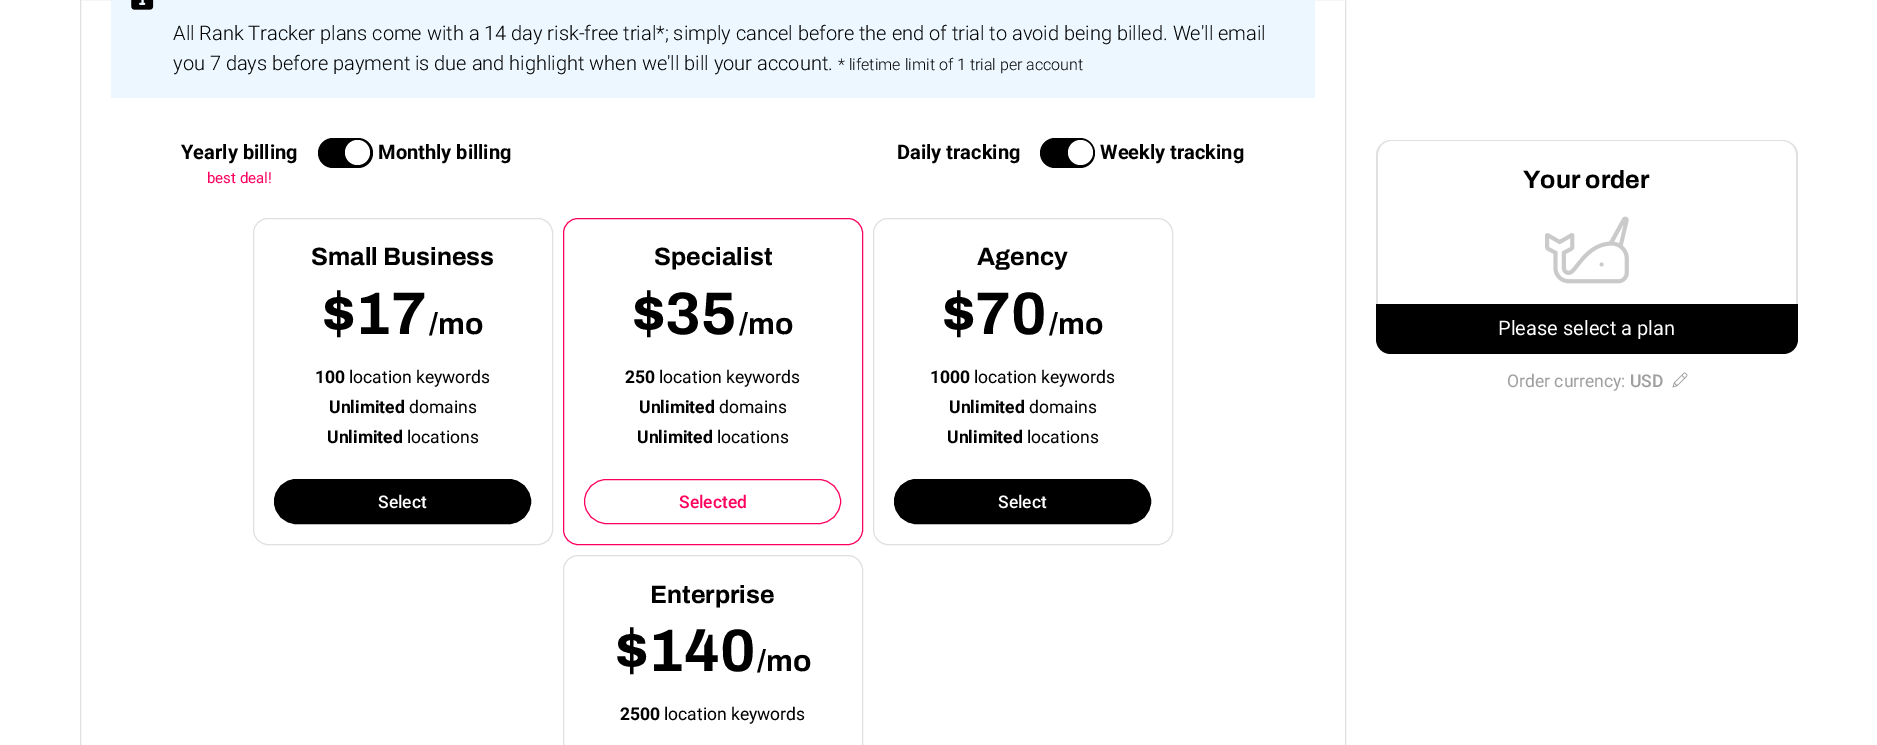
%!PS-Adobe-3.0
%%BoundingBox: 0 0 1877 745
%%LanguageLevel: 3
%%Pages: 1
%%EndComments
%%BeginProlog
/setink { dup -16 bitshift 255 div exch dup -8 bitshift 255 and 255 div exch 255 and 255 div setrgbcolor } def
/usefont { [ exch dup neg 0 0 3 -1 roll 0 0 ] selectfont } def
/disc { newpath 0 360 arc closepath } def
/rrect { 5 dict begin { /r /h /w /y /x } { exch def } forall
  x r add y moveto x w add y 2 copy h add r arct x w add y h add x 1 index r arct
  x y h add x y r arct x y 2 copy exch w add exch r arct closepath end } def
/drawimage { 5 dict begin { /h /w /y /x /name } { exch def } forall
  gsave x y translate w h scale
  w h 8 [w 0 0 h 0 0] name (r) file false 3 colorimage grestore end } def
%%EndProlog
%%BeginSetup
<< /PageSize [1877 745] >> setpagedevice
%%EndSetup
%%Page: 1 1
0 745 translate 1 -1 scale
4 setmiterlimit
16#FFFFFF setink
0 0 1877 745 rectfill
16#E0E0E0 setink
80.5 -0.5 1265 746 rectstroke
16#ECF7FF setink
111 0 1204 98 rectfill
(img1.raw) 131 0 23 10 drawimage
/Roboto-Light 20 usefont
16#000000 setink
173 40 moveto (All Rank Tracker plans come with a 14 day risk-free trial*; simply cancel before the end of trial to avoid being billed. We'll email) show
173 70 moveto (you 7 days before payment is due and highlight when we'll bill your account.) show
/Roboto-Light 16 usefont
838 70 moveto (* lifetime limit of 1 trial per account) show
/Roboto-Bold 20 usefont
181 159 moveto (Yearly billing) show
/Roboto-Regular 15 usefont
16#FD015E setink
207 183 moveto (best deal!) show
16#000000 setink
318 138 55 30 15 rrect fill
16#FFFFFF setink
357.5 152.5 12.5 disc fill
/Roboto-Bold 20 usefont
16#000000 setink
378 159 moveto (Monthly billing) show
897 159 moveto (Daily tracking) show
1040 138 55 30 15 rrect fill
16#FFFFFF setink
1080.5 152.5 12.5 disc fill
16#000000 setink
1100 159 moveto (Weekly tracking) show
16#E0E0E0 setink
253.5 218.5 299 326 14.5 rrect stroke
/Archivo-Bold 25 usefont
16#000000 setink
311 265 moveto (Small Business) show
/Archivo-Bold 60 usefont
322 334 moveto ($17) show
/Archivo-Bold 30 usefont
429 334 moveto (/mo) show
/Roboto-Bold 17.5 usefont
315 383 moveto (100) show
/Roboto-Regular 17.5 usefont
349 383 moveto (location keywords) show
/Roboto-Bold 17.5 usefont
329 413 moveto (Unlimited) show
/Roboto-Regular 17.5 usefont
409 413 moveto (domains) show
/Roboto-Bold 17.5 usefont
327 443 moveto (Unlimited) show
/Roboto-Regular 17.5 usefont
407 443 moveto (locations) show
274.5 479.5 256 44 22 rrect gsave fill grestore
stroke
/Roboto-Medium 17.5 usefont
16#FFFFFF setink
378 508 moveto (Select) show
16#FD015E setink
563.5 218.5 299 326 14.5 rrect stroke
/Archivo-Bold 25 usefont
16#000000 setink
654 265 moveto (Specialist) show
/Archivo-Bold 60 usefont
632 334 moveto ($35) show
/Archivo-Bold 30 usefont
739 334 moveto (/mo) show
/Roboto-Bold 17.5 usefont
625 383 moveto (250) show
/Roboto-Regular 17.5 usefont
659 383 moveto (location keywords) show
/Roboto-Bold 17.5 usefont
639 413 moveto (Unlimited) show
/Roboto-Regular 17.5 usefont
719 413 moveto (domains) show
/Roboto-Bold 17.5 usefont
637 443 moveto (Unlimited) show
/Roboto-Regular 17.5 usefont
717 443 moveto (locations) show
16#FD015E setink
584.5 479.5 256 44 22 rrect stroke
/Roboto-Medium 17.5 usefont
679 508 moveto (Selected) show
16#E0E0E0 setink
873.5 218.5 299 326 14.5 rrect stroke
/Archivo-Bold 25 usefont
16#000000 setink
977 265 moveto (Agency) show
/Archivo-Bold 60 usefont
942 334 moveto ($70) show
/Archivo-Bold 30 usefont
1049 334 moveto (/mo) show
/Roboto-Bold 17.5 usefont
930 383 moveto (1000) show
/Roboto-Regular 17.5 usefont
974 383 moveto (location keywords) show
/Roboto-Bold 17.5 usefont
949 413 moveto (Unlimited) show
/Roboto-Regular 17.5 usefont
1029 413 moveto (domains) show
/Roboto-Bold 17.5 usefont
947 443 moveto (Unlimited) show
/Roboto-Regular 17.5 usefont
1027 443 moveto (locations) show
894.5 479.5 256 44 22 rrect gsave fill grestore
stroke
/Roboto-Medium 17.5 usefont
16#FFFFFF setink
998 508 moveto (Select) show
16#E0E0E0 setink
563.5 555.5 299 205 14.5 rrect stroke
/Archivo-Bold 25 usefont
16#000000 setink
650 603 moveto (Enterprise) show
/Archivo-Bold 60 usefont
615 671 moveto ($140) show
/Archivo-Bold 30 usefont
757 671 moveto (/mo) show
/Roboto-Bold 17.5 usefont
620 720 moveto (2500) show
/Roboto-Regular 17.5 usefont
664 720 moveto (location keywords) show
16#E0E0E0 setink
1391 140 moveto 1782 140 lineto 1791 140 1798 147 1798 155 curveto 1798 304 lineto 1376 304 lineto 1376 155 lineto 1376 147 1383 140 1391 140 curveto closepath 1391 141 moveto 1782 141 lineto 1790 141 1796 147 1796 155 curveto 1796 304 lineto 1378 304 lineto 1378 155 lineto 1378 147 1384 141 1391 141 curveto closepath eofill
/Archivo-Bold 25 usefont
16#000000 setink
1523 188 moveto (Your order) show
(img2.raw) 1545 216 84 68 drawimage
1376 304 moveto 1798 304 lineto 1798 339 lineto 1798 347.5 1791.5 354 1783 354 curveto 1391 354 lineto 1382.5 354 1376 347.5 1376 339 curveto closepath fill
/Roboto-Regular 20 usefont
16#FFFFFF setink
1498 335 moveto (Please select a plan) show
/Roboto-Regular 17.5 usefont
16#9F9F9F setink
1507 387 moveto (Order currency:) show
/Roboto-Medium 17.5 usefont
1630 387 moveto (USD) show
(img3.raw) 1672 372 16 16 drawimage
showpage
%%EOF
